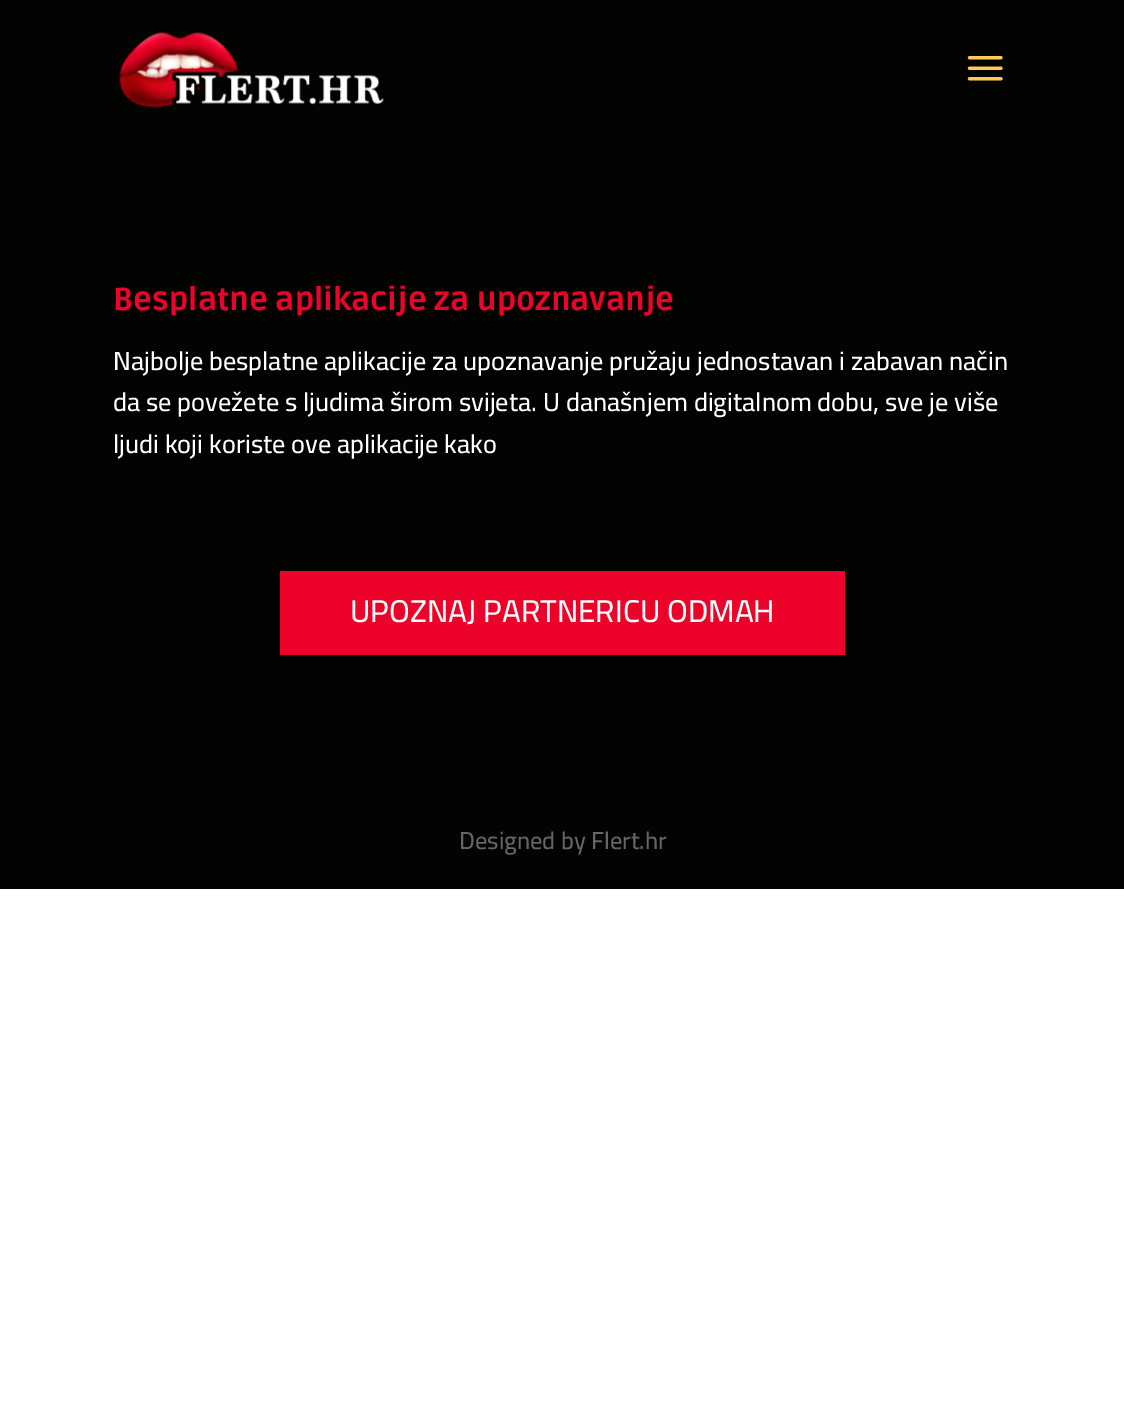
%!PS-Adobe-3.0
%%BoundingBox: 0 0 1124 1414
%%LanguageLevel: 3
%%Pages: 1
%%EndComments
%%BeginProlog
/setink { dup -16 bitshift 255 div exch dup -8 bitshift 255 and 255 div exch 255 and 255 div setrgbcolor } def
/usefont { [ exch dup neg 0 0 3 -1 roll 0 0 ] selectfont } def
/drawimage { 5 dict begin { /h /w /y /x /name } { exch def } forall
  gsave x y translate w h scale
  w h 8 [w 0 0 h 0 0] name (r) file false 3 colorimage grestore end } def
%%EndProlog
%%BeginSetup
<< /PageSize [1124 1414] >> setpagedevice
%%EndSetup
%%Page: 1 1
0 1414 translate 1 -1 scale
4 setmiterlimit
16#FFFFFF setink
0 0 1124 1414 rectfill
16#030301 setink
0 0 1124 889 rectfill
(img1.raw) 119 32 265 76 drawimage
(img2.raw) 967 56 36 25 drawimage
/Ruda-ExtraBold 31.5 usefont
16#ED032A setink
113 310 moveto (Besplatne aplikacije za upoznavanje) show
/Cairo-Medium 26.25 usefont
16#FFFFFF setink
[
    [(Najbolje besplatne aplikacije za upoznavanje pružaju jednostavan i zabavan način) 113 370]
    [(da se povežete s ljudima širom svijeta. U današnjem digitalnom dobu, sve je više) 113 411]
    [(ljudi koji koriste ove aplikacije kako) 113 453]
] { aload pop moveto show } forall
16#ED032A setink
280 571 565 84 rectfill
/Cairo-Medium 31.5 usefont
16#FFFFFF setink
350 622 moveto (UPOZNAJ PARTNERICU ODMAH) show
/Cairo-Medium 24.5 usefont
16#666666 setink
459 849 moveto (Designed by Flert.hr) show
showpage
%%EOF
